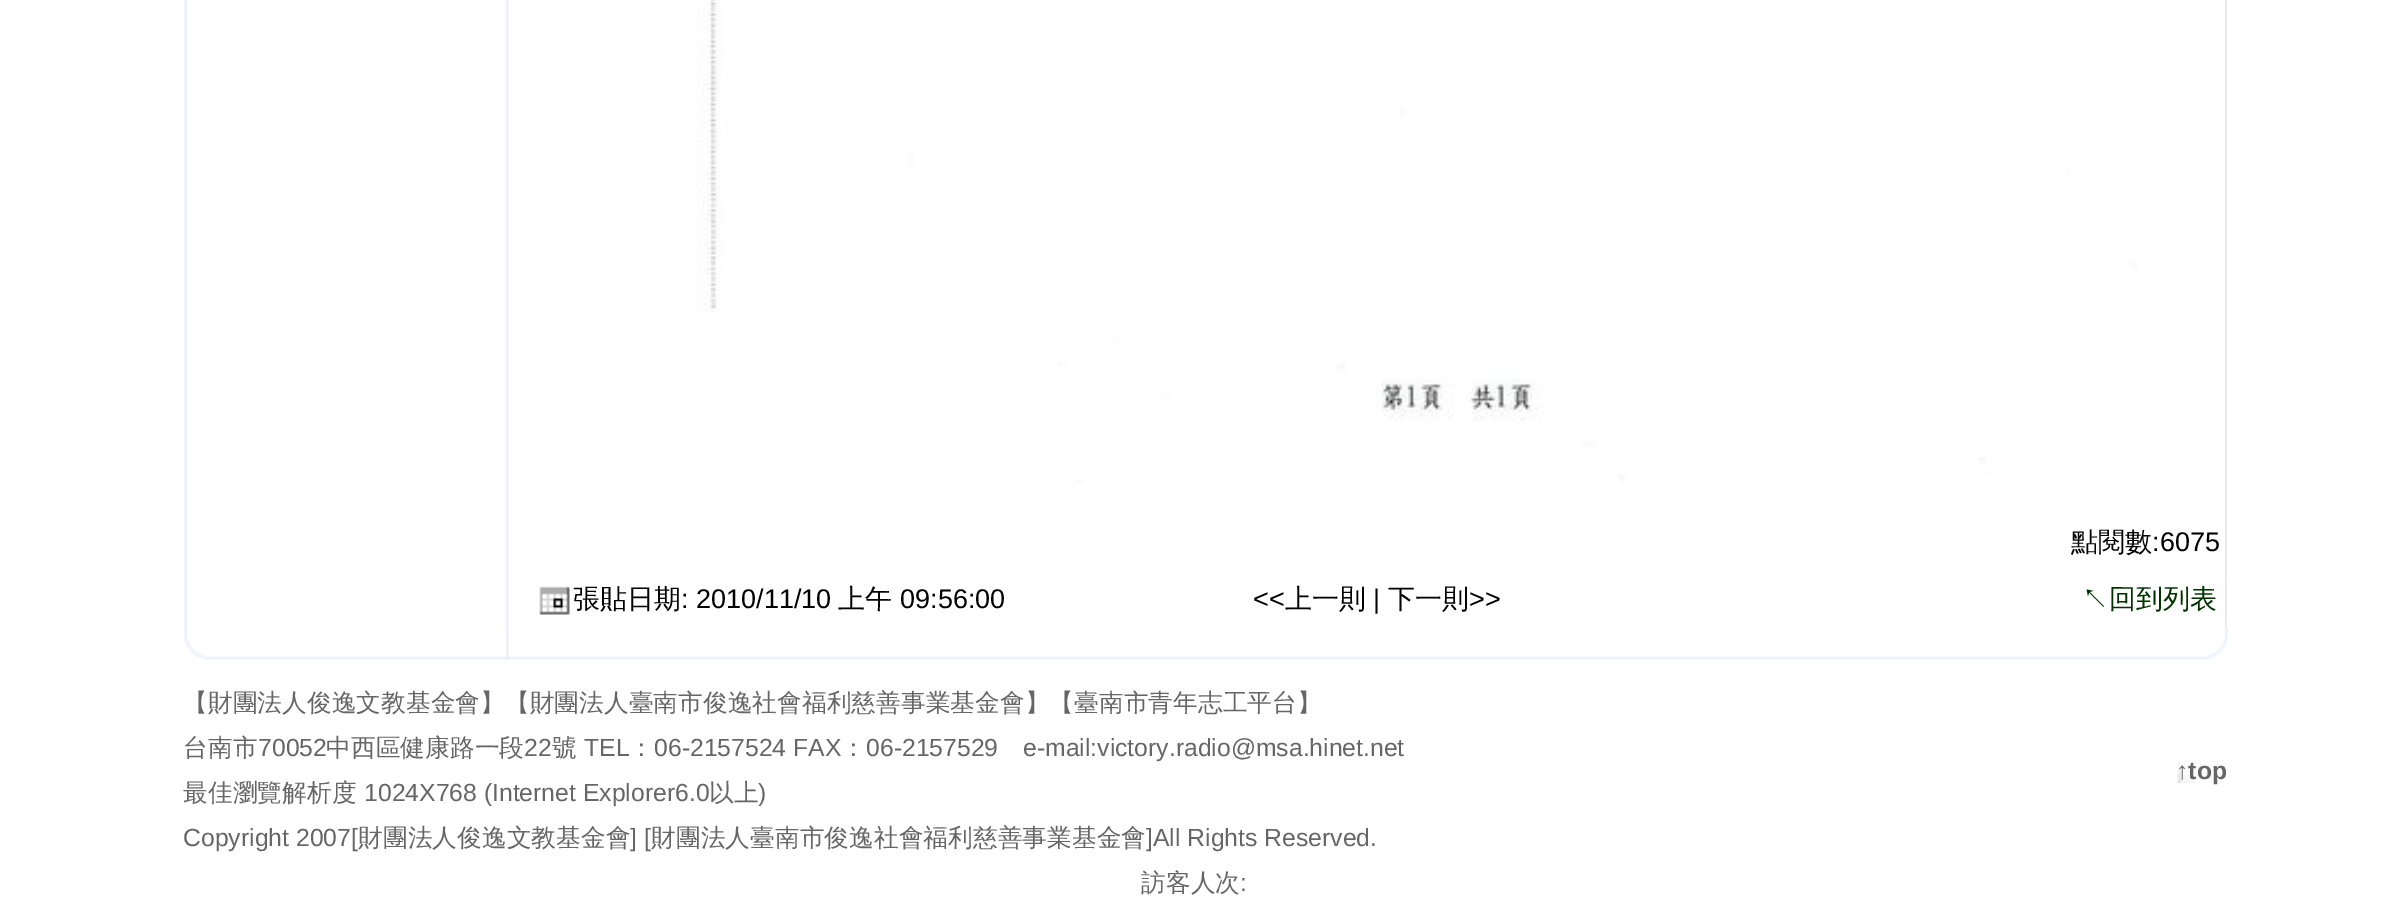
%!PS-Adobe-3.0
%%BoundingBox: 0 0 2387 904
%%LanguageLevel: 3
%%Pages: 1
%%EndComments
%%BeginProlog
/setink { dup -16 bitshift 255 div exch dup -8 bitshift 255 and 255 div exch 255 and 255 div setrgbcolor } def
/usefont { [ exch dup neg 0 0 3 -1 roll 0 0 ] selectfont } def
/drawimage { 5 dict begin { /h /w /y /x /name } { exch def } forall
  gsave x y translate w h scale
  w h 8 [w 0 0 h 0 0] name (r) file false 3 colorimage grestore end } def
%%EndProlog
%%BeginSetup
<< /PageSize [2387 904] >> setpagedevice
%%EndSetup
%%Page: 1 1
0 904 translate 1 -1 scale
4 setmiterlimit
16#FFFFFF setink
0 0 2387 904 rectfill
(img1.raw) 184 0 325 628 drawimage
16#EAEAEA setink
2225 0 2 628 rectfill
(img2.raw) 697 0 1440 483 drawimage
/WenQuanYiZenHei-Medium 27 usefont
16#000000 setink
2071 551 moveto (點閱數) show
/LiberationSans-Regular 27 usefont
2152 551 moveto (:6075) show
(img3.raw) 539 586 31 29 drawimage
/WenQuanYiZenHei-Medium 27 usefont
573 608 moveto (張貼日期) show
/LiberationSans-Regular 27 usefont
681 608 moveto (: 2010/11/10) show
/WenQuanYiZenHei-Medium 27 usefont
838 608 moveto (上午) show
/LiberationSans-Regular 27 usefont
900 608 moveto (09:56:00) show
1253 608 moveto (<<) show
/WenQuanYiZenHei-Medium 27 usefont
1285 608 moveto (上一則) show
/LiberationSans-Regular 27 usefont
1373 608 moveto (|) show
/WenQuanYiZenHei-Medium 27 usefont
1388 608 moveto (下一則) show
/LiberationSans-Regular 27 usefont
1469 608 moveto (>>) show
/WenQuanYiZenHei-Medium 27 usefont
16#003300 setink
2082 608 moveto (↖回到列表) show
(img4.raw) 184 627 2044 33 drawimage
/WenQuanYiZenHei-Medium 24.75 usefont
16#666666 setink
183 711 moveto (【財團法人俊逸文教基金會】【財團法人臺南市俊逸社會福利慈善事業基金會】【臺南市青年志工平台】) show
183 756 moveto (台南市) show
/LiberationSans-Regular 24.75 usefont
258 756 moveto (70052) show
/WenQuanYiZenHei-Medium 24.75 usefont
326 756 moveto (中西區健康路一段) show
/LiberationSans-Regular 24.75 usefont
524 756 moveto (22) show
/WenQuanYiZenHei-Medium 24.75 usefont
552 756 moveto (號) show
/LiberationSans-Regular 24.75 usefont
584 756 moveto (TEL) show
/WenQuanYiZenHei-Medium 24.75 usefont
629 756 moveto (：) show
/LiberationSans-Regular 24.75 usefont
654 756 moveto (06-2157524 FAX) show
/WenQuanYiZenHei-Medium 24.75 usefont
841 756 moveto (：) show
/LiberationSans-Regular 24.75 usefont
866 756 moveto (06-2157529) show
1023 756 moveto (e-mail:victory.radio@msa.hinet.net) show
/WenQuanYiZenHei-Medium 24.75 usefont
183 801 moveto (最佳瀏覽解析度) show
/LiberationSans-Regular 24.75 usefont
364 801 moveto (1024X768 \(Internet Explorer6.0) show
/WenQuanYiZenHei-Medium 24.75 usefont
709 801 moveto (以上) show
/LiberationSans-Regular 24.75 usefont
758 801 moveto (\)) show
183 846 moveto (Copyright 2007[) show
/WenQuanYiZenHei-Medium 24.75 usefont
358 846 moveto (財團法人俊逸文教基金會) show
/LiberationSans-Regular 24.75 usefont
630 846 moveto (] [) show
/WenQuanYiZenHei-Medium 24.75 usefont
651 846 moveto (財團法人臺南市俊逸社會福利慈善事業基金會) show
/LiberationSans-Regular 24.75 usefont
1146 846 moveto (]All Rights Reserved.) show
(img5.raw) 2177 761 20 22 drawimage
/LiberationSans-Bold 24.75 usefont
2176 779 moveto (↑top) show
/WenQuanYiZenHei-Medium 24.75 usefont
1141 891 moveto (訪客人次) show
/LiberationSans-Regular 24.75 usefont
1240 891 moveto (:) show
showpage
%%EOF
